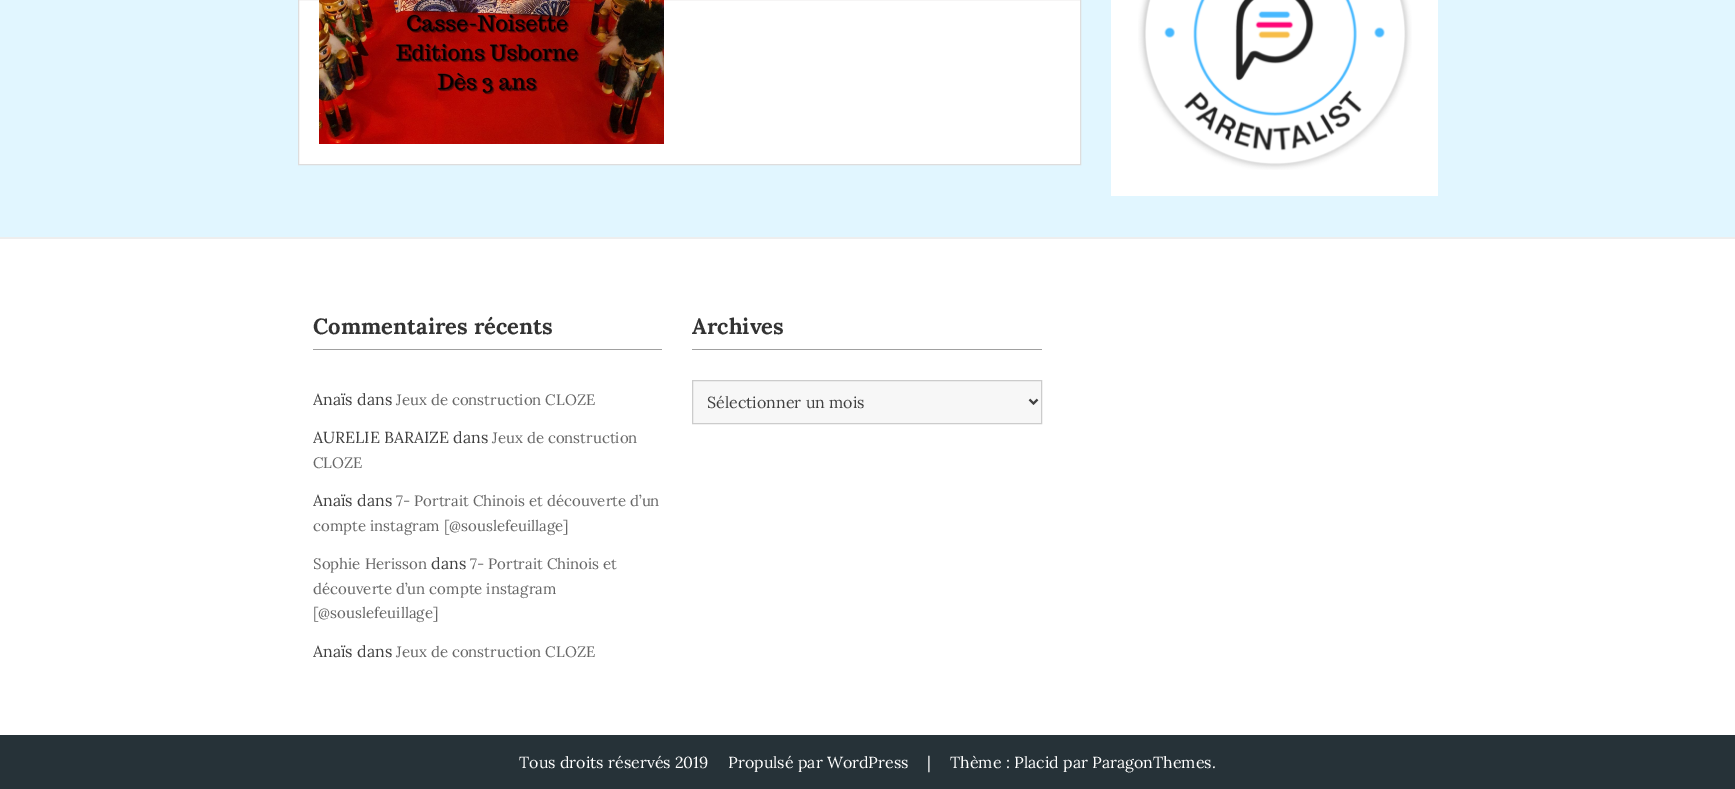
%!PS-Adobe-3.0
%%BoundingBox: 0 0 1735 789
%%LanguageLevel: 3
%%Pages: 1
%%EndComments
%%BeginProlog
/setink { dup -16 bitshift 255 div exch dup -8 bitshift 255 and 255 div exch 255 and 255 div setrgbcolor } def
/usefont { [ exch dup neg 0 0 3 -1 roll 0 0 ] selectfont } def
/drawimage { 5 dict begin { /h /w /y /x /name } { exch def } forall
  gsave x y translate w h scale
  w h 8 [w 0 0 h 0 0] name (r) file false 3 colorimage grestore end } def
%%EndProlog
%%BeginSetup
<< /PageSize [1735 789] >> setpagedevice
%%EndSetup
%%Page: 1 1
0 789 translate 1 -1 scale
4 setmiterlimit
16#E1F6FF setink
0 0 1735 789 rectfill
16#FFFFFF setink
298.5 -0.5 moveto 1080.5 -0.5 lineto 1080.5 164.5 lineto 298.5 164.5 lineto closepath gsave fill grestore
16#DEDDDD setink
stroke
(img1.raw) 319 0 345 144 drawimage
16#FFFFFF setink
1111 0 327 196 rectfill
(img2.raw) 1138 0 274 170 drawimage
[
    [0 239 1735 496 16#FFFFFF]
    [0 237 1735 2 16#EEEEEE]
    [313 349 349 1 16#A0A0A0]
] { aload pop setink rectfill } forall
/Lora-Bold 22 usefont
16#333333 setink
313 334 moveto (Commentaires récents) show
/Lora-Regular 16 usefont
16#404040 setink
313 405 moveto (Anaïs dans) show
/Lora-Regular 15 usefont
16#666666 setink
396 405 moveto (Jeux de construction CLOZE) show
/Lora-Regular 16 usefont
16#404040 setink
313 443 moveto (AURELIE BARAIZE dans) show
/Lora-Regular 15 usefont
16#666666 setink
492 443 moveto (Jeux de construction) show
313 468 moveto (CLOZE) show
/Lora-Regular 16 usefont
16#404040 setink
313 506 moveto (Anaïs dans) show
/Lora-Regular 15 usefont
16#666666 setink
[
    [(7- Portrait Chinois et découverte d’un) 396 506]
    [(compte instagram [@souslefeuillage]) 313 531]
    [(Sophie Herisson) 313 569]
] { aload pop moveto show } forall
/Lora-Regular 16 usefont
16#404040 setink
431 569 moveto (dans) show
/Lora-Regular 15 usefont
16#666666 setink
[
    [(7- Portrait Chinois et) 470 569]
    [(découverte d’un compte instagram) 313 594]
    [([@souslefeuillage]) 313 618]
] { aload pop moveto show } forall
/Lora-Regular 16 usefont
16#404040 setink
313 657 moveto (Anaïs dans) show
/Lora-Regular 15 usefont
16#666666 setink
396 657 moveto (Jeux de construction CLOZE) show
16#A0A0A0 setink
692 349 350 1 rectfill
/Lora-Bold 22 usefont
16#333333 setink
692 334 moveto (Archives) show
16#F7F7F7 setink
692.5 380.5 moveto 1041.5 380.5 lineto 1041.5 423.5 lineto 692.5 423.5 lineto closepath gsave fill grestore
16#CCCCCC setink
stroke
16#404040 setink
2 setlinewidth
1029.5 399.5 moveto 1033.5 403.5 lineto 1037.5 399.5 lineto stroke
/Lora-Regular 16 usefont
707 408 moveto (Sélectionner un mois) show
16#263238 setink
0 735 1735 54 rectfill
16#FFFFFF setink
[
    [(Tous droits réservés 2019) 519 768]
    [(Propulsé par WordPress) 728 768]
    [(|) 927 768]
    [(Thème : Placid par ParagonThemes.) 950 768]
] { aload pop moveto show } forall
showpage
%%EOF
